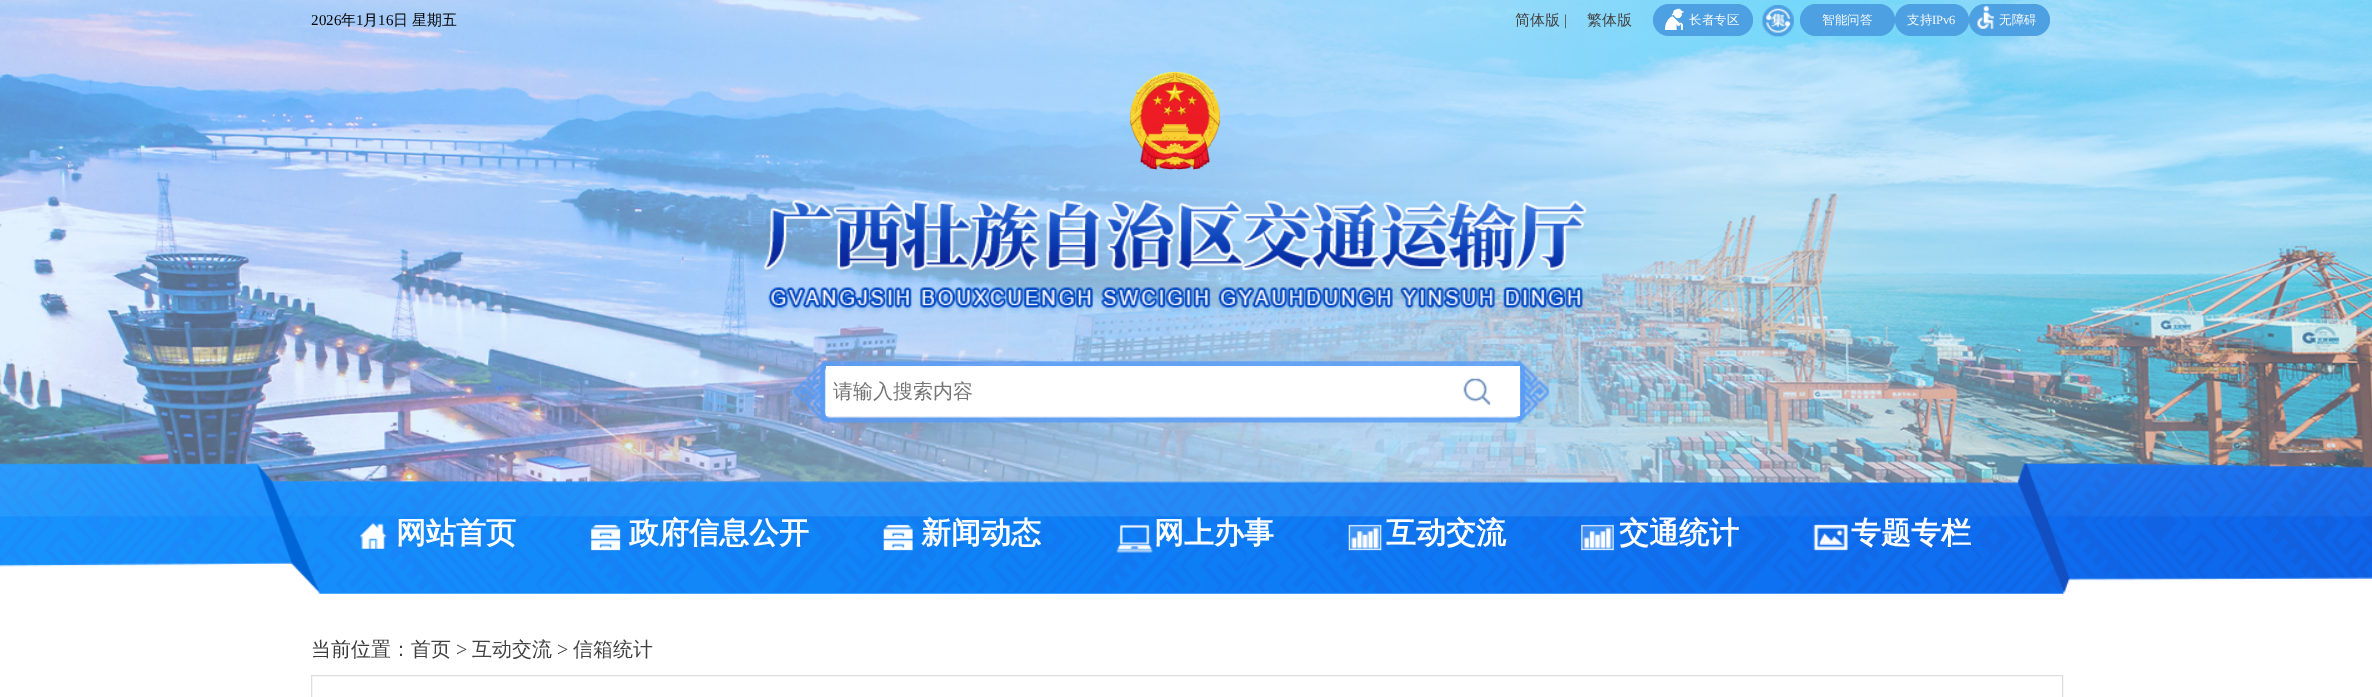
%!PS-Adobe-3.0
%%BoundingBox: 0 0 2372 697
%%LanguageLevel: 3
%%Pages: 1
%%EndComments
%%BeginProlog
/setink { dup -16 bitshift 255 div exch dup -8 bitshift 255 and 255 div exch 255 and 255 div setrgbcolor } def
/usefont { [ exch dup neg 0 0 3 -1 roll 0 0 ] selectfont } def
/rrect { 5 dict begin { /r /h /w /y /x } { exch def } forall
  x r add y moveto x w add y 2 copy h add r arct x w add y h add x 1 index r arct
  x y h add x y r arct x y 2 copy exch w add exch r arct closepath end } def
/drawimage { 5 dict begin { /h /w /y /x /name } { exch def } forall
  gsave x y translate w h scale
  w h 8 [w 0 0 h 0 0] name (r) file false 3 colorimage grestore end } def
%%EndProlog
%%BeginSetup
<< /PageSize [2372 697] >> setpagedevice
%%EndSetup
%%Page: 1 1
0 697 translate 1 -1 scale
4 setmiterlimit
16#FFFFFF setink
0 0 2372 697 rectfill
(img1.raw) 255 562 38 1 drawimage
(img2.raw) 0 0 2372 563 drawimage
/LiberationSerif-Regular 15 usefont
16#080808 setink
311 25 moveto (2026) show
/WenQuanYiZenHei-Medium 15 usefont
341 25 moveto (年) show
/LiberationSerif-Regular 15 usefont
356 25 moveto (1) show
/WenQuanYiZenHei-Medium 15 usefont
363 25 moveto (月) show
/LiberationSerif-Regular 15 usefont
378 25 moveto (16) show
/WenQuanYiZenHei-Medium 15 usefont
393 25 moveto (日) show
412 25 moveto (星期五) show
16#434242 setink
1515 25 moveto (简体版) show
/LiberationSerif-Regular 15 usefont
1564 25 moveto (|) show
/WenQuanYiZenHei-Medium 15 usefont
1587 25 moveto (繁体版) show
16#4DA0E2 setink
1653 4 100 32 16 rrect fill
(img3.raw) 1665 8 19 22 drawimage
/WenQuanYiZenHei-Medium 12.5 usefont
16#FFFFFF setink
1689 24 moveto (长者专区) show
(img4.raw) 1762 5 32 32 drawimage
16#4DA0E2 setink
1800 4 95 32 16 rrect fill
16#FFFFFF setink
1822 24 moveto (智能问答) show
16#4DA0E2 setink
1895 4 74 32 16 rrect fill
16#FFFFFF setink
1907 24 moveto (支持) show
/LiberationSerif-Regular 12.5 usefont
1932 24 moveto (IPv6) show
16#4DA0E2 setink
1969 4 81 32 16 rrect fill
(img5.raw) 1977 6 17 23 drawimage
/WenQuanYiZenHei-Medium 12.5 usefont
16#FFFFFF setink
1999 24 moveto (无障碍) show
(img6.raw) 1129 71 92 99 drawimage
(img7.raw) 763 200 824 114 drawimage
(img8.raw) 793 358 756 66 drawimage
826 366 694 50 rectfill
/WenQuanYiZenHei-Medium 20 usefont
16#757575 setink
833 398 moveto (请输入搜索内容) show
(img9.raw) 1463 378 28 27 drawimage
(img10.raw) 0 463 2372 131 drawimage
(img11.raw) 359 522 28 27 drawimage
/WenQuanYiZenHei-Bold 30 usefont
16#FFFFFF setink
396 543 moveto (网站首页) show
(img12.raw) 591 524 30 27 drawimage
629 543 moveto (政府信息公开) show
(img13.raw) 883 524 30 27 drawimage
921 543 moveto (新闻动态) show
(img14.raw) 1116 524 37 29 drawimage
1154 543 moveto (网上办事) show
(img15.raw) 1348 524 34 27 drawimage
1386 543 moveto (互动交流) show
(img16.raw) 1581 524 33 27 drawimage
1619 543 moveto (交通统计) show
(img17.raw) 1813 524 35 27 drawimage
1851 543 moveto (专题专栏) show
/WenQuanYiZenHei-Medium 20 usefont
16#3B3B3B setink
311 656 moveto (当前位置：) show
16#434242 setink
411 656 moveto (首页) show
/LiberationSerif-Regular 20 usefont
16#3B3B3B setink
456 656 moveto (>) show
/WenQuanYiZenHei-Medium 20 usefont
16#434242 setink
472 656 moveto (互动交流) show
/LiberationSerif-Regular 20 usefont
16#3B3B3B setink
557 656 moveto (>) show
/WenQuanYiZenHei-Medium 20 usefont
16#434242 setink
573 656 moveto (信箱统计) show
16#DFDEDE setink
311.5 675.5 1751 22 rectstroke
showpage
%%EOF
